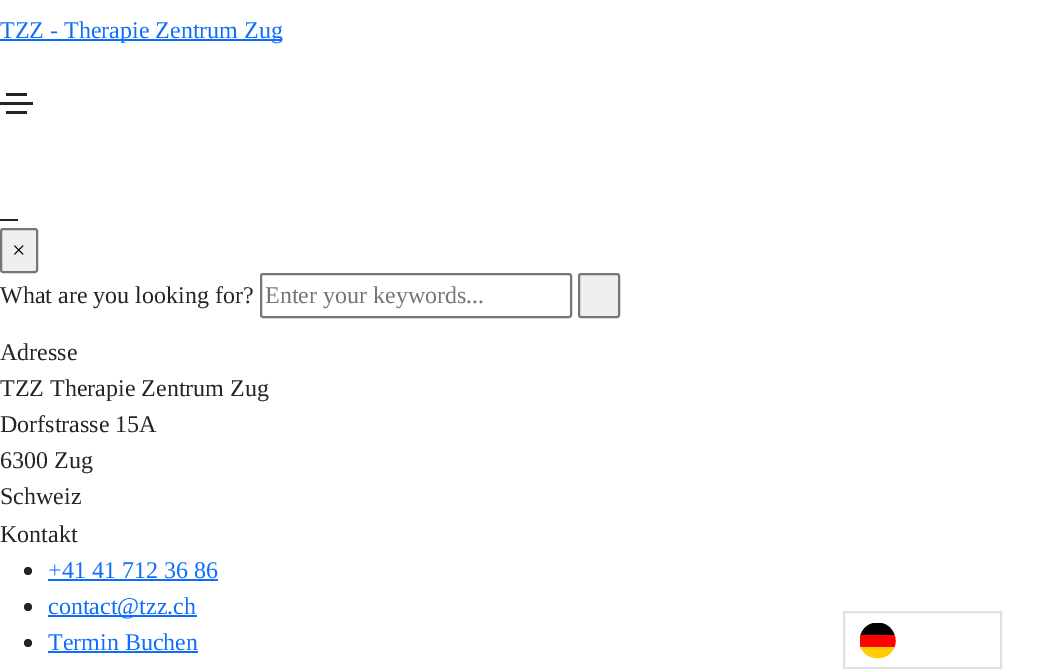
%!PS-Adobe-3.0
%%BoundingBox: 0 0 1062 669
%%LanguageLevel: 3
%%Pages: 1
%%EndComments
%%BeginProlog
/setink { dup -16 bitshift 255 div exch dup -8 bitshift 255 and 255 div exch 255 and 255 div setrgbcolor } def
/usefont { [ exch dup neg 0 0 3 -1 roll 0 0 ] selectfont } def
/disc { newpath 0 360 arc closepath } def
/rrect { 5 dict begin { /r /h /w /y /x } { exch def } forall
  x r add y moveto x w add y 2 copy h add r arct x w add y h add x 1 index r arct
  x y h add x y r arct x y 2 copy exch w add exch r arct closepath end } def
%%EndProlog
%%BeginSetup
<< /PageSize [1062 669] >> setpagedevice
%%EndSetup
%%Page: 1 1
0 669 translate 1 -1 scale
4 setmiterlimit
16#FFFFFF setink
0 0 1062 669 rectfill
16#0D6EFD setink
0 39 282 2 rectfill
/LiberationSerif-Regular 24 usefont
0 38 moveto (TZZ - Therapie Zentrum Zug) show
[
    [6 93 21 3 16#232323]
    [0 102 33 3 16#232323]
    [6 111 21 3 16#232323]
    [0 219 18 2 16#232323]
] { aload pop setink rectfill } forall
16#EFEFEF setink
1 229 36 43 2 rrect gsave fill grestore
16#767676 setink
2 setlinewidth
stroke
16#000000 setink
12 258 moveto (×) show
16#212529 setink
0 303 moveto (What are you looking for?) show
16#767676 setink
261 274 310 43 2 rrect stroke
16#757575 setink
265 303 moveto (Enter your keywords...) show
16#EFEFEF setink
579 274 40 43 2 rrect gsave fill grestore
16#767676 setink
stroke
16#212529 setink
[
    [(Adresse) 0 360]
    [(TZZ Therapie Zentrum Zug) 0 396]
    [(Dorfstrasse 15A) 0 432]
    [(6300 Zug) 0 468]
    [(Schweiz) 0 504]
    [(Kontakt) 0 542]
] { aload pop moveto show } forall
28 571 4 disc fill
16#0D6EFD setink
48 578 moveto (+41 41 712 36 86) show
48 579 170 2 rectfill
16#212529 setink
28 607 4 disc fill
16#0D6EFD setink
48 615 149 2 rectfill
48 614 moveto (contact@tzz.ch) show
16#212529 setink
28 643 4 disc fill
16#0D6EFD setink
48 650 moveto (Termin Buchen) show
48 651 150 2 rectfill
16#E0E0E0 setink
844 612 157 56 rectstroke
16#FFCC00 setink
894.5 647 moveto 888.5 662 866.5 662 860.5 647 curveto closepath fill
16#000001 setink
860.5 635 moveto 862.5 629 867 624.5 873.5 623 curveto 881.5 623 lineto 888 624.5 892.5 629 894.5 635 curveto closepath fill
gsave
860 623 36 36 rectclip
16#FF0000 setink
860 636.5 moveto 860.5 635 lineto 894.5 635 lineto 896 639 896 643 894.5 647 curveto 860.5 647 lineto 859.5 643.5 860 640 860 636.5 curveto closepath fill
grestore
showpage
%%EOF
